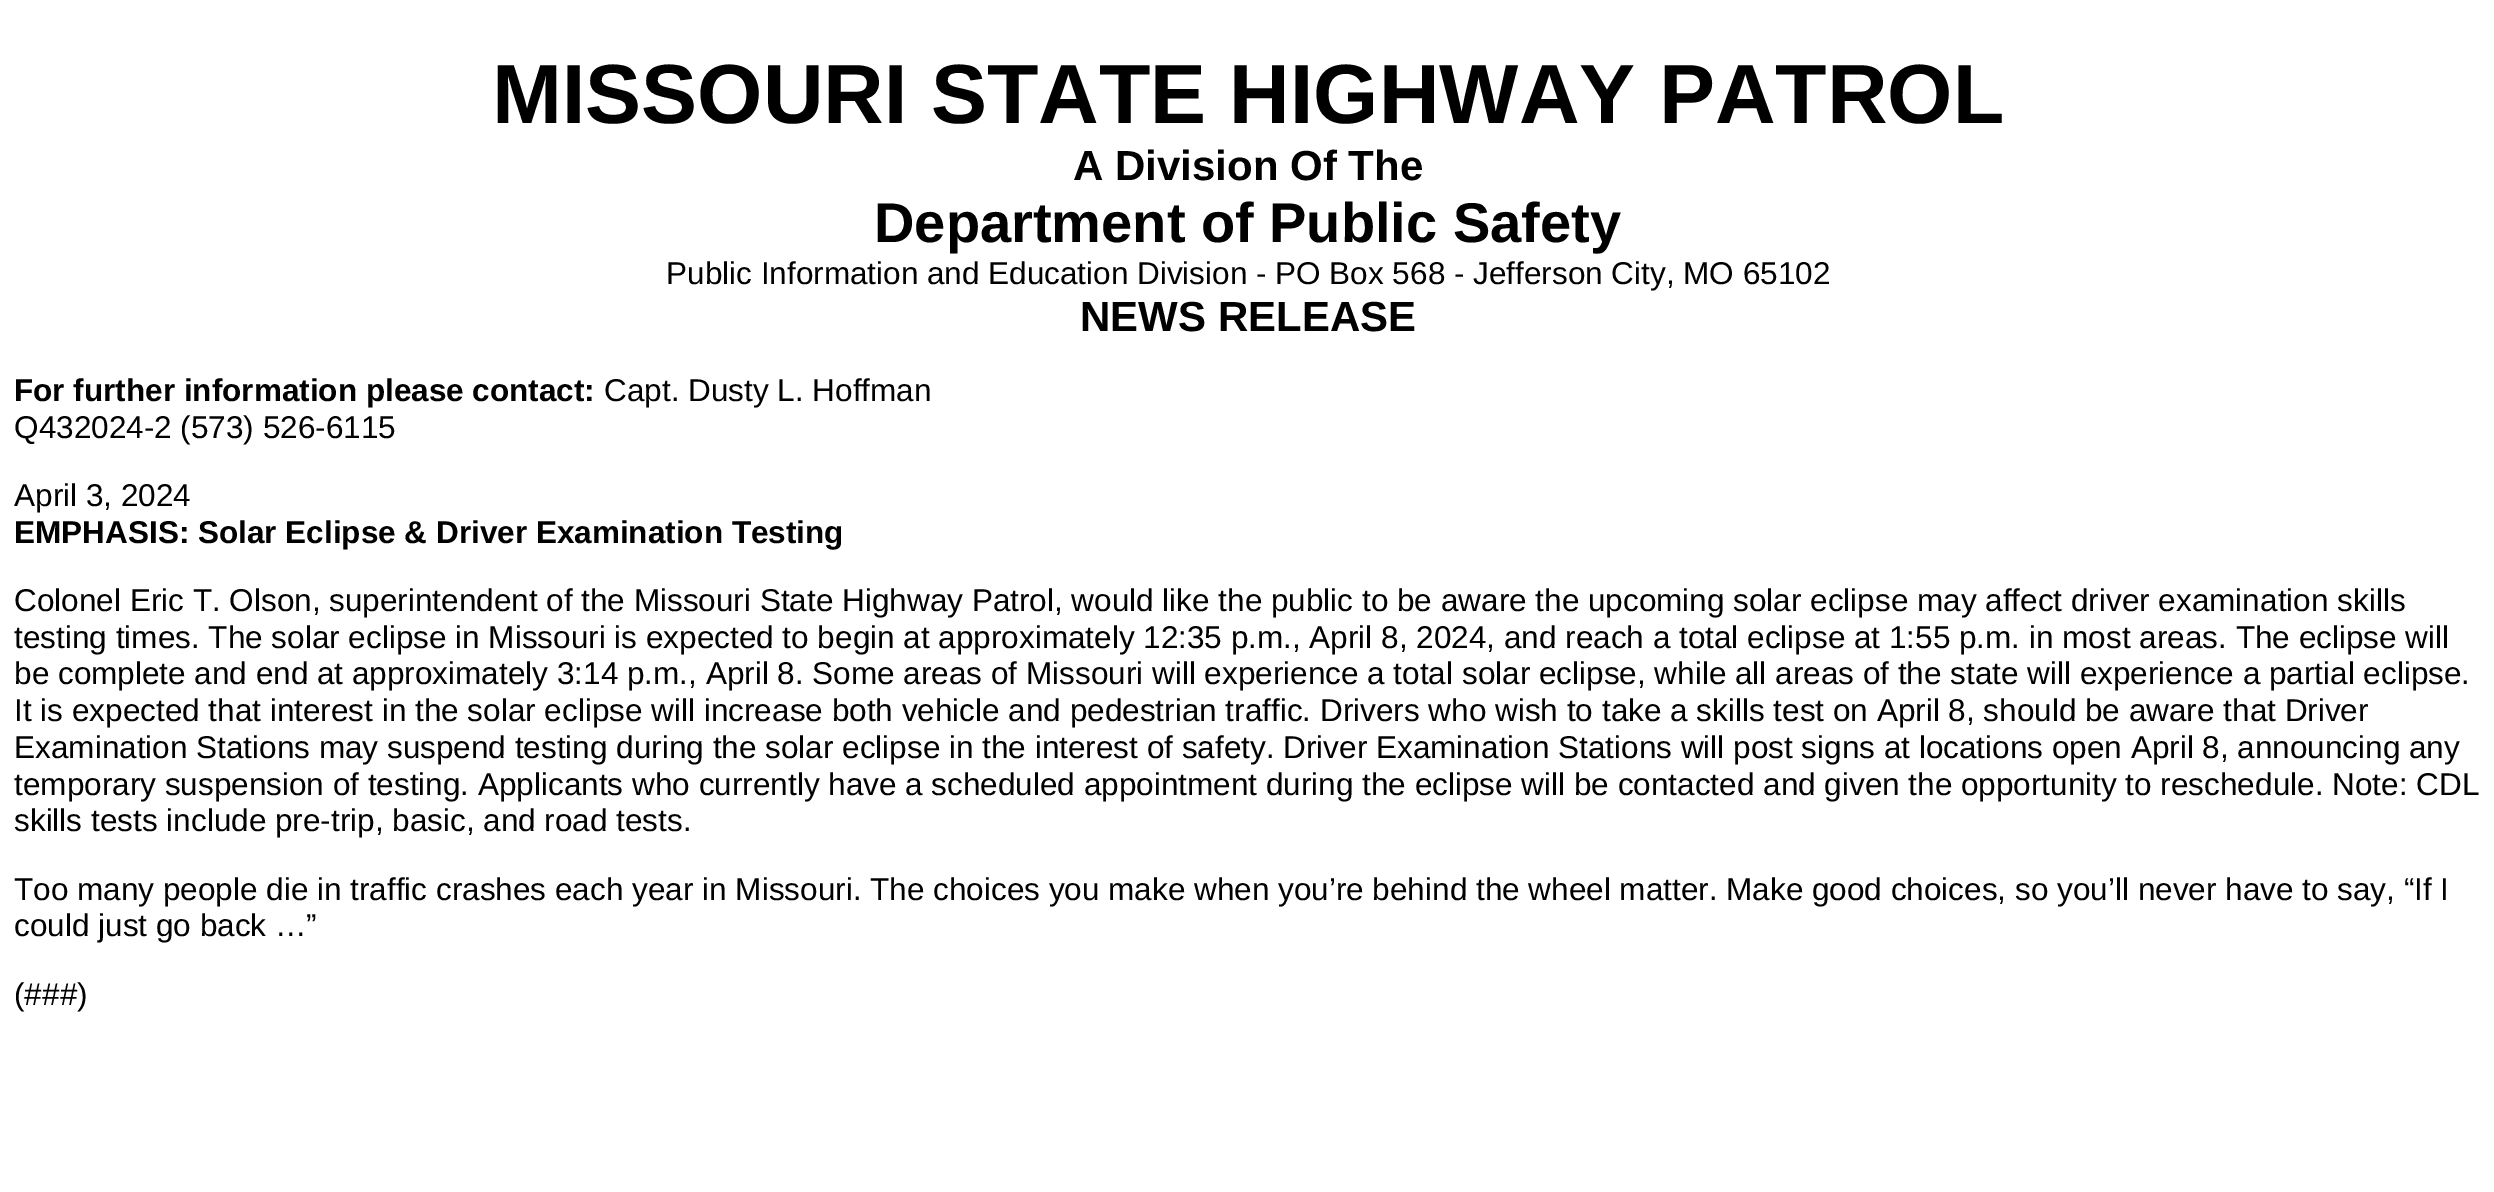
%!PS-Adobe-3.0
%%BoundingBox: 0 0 2494 1192
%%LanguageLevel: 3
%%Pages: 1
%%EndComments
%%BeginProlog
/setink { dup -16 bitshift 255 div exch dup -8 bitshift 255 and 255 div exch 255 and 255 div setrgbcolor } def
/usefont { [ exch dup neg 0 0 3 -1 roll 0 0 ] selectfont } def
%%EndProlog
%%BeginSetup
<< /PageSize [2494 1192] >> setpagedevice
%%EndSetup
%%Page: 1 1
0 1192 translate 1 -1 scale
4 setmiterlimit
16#FFFFFF setink
0 0 2494 1192 rectfill
/LiberationSans-Bold 84 usefont
16#000000 setink
492 123 moveto (MISSOURI STATE HIGHWAY PATROL) show
/LiberationSans-Bold 42 usefont
1073 180 moveto (A Division Of The) show
/LiberationSans-Bold 56 usefont
874 242 moveto (Department of Public Safety) show
/LiberationSans-Regular 31.5 usefont
666 284 moveto (Public Information and Education Division - PO Box 568 - Jefferson City, MO 65102) show
/LiberationSans-Bold 42 usefont
1080 331 moveto (NEWS RELEASE) show
/LiberationSans-Bold 31.5 usefont
14 401 moveto (For further information please contact:) show
/LiberationSans-Regular 31.5 usefont
[
    [(Capt. Dusty L. Hoffman) 604 401]
    [(Q432024-2 \(573\) 526-6115) 14 438]
    [(April 3, 2024) 14 506]
] { aload pop moveto show } forall
/LiberationSans-Bold 31.5 usefont
14 543 moveto (EMPHASIS: Solar Eclipse & Driver Examination Testing) show
/LiberationSans-Regular 31.5 usefont
[
    [(Colonel Eric T. Olson, superintendent of the Missouri State Highway Patrol, would like the public to be aware the upcoming solar eclipse may affect driver examination skills) 14 611]
    [(testing times. The solar eclipse in Missouri is expected to begin at approximately 12:35 p.m., April 8, 2024, and reach a total eclipse at 1:55 p.m. in most areas. The eclipse will) 14 648]
    [(be complete and end at approximately 3:14 p.m., April 8. Some areas of Missouri will experience a total solar eclipse, while all areas of the state will experience a partial eclipse.) 14 684]
    [(It is expected that interest in the solar eclipse will increase both vehicle and pedestrian traffic. Drivers who wish to take a skills test on April 8, should be aware that Driver) 14 721]
    [(Examination Stations may suspend testing during the solar eclipse in the interest of safety. Driver Examination Stations will post signs at locations open April 8, announcing any) 14 758]
    [(temporary suspension of testing. Applicants who currently have a scheduled appointment during the eclipse will be contacted and given the opportunity to reschedule. Note: CDL) 14 795]
    [(skills tests include pre-trip, basic, and road tests.) 14 831]
    [(Too many people die in traffic crashes each year in Missouri. The choices you make when you’re behind the wheel matter. Make good choices, so you’ll never have to say, “If I) 14 900]
    [(could just go back …”) 14 936]
    [(\(###\)) 14 1005]
] { aload pop moveto show } forall
showpage
%%EOF
